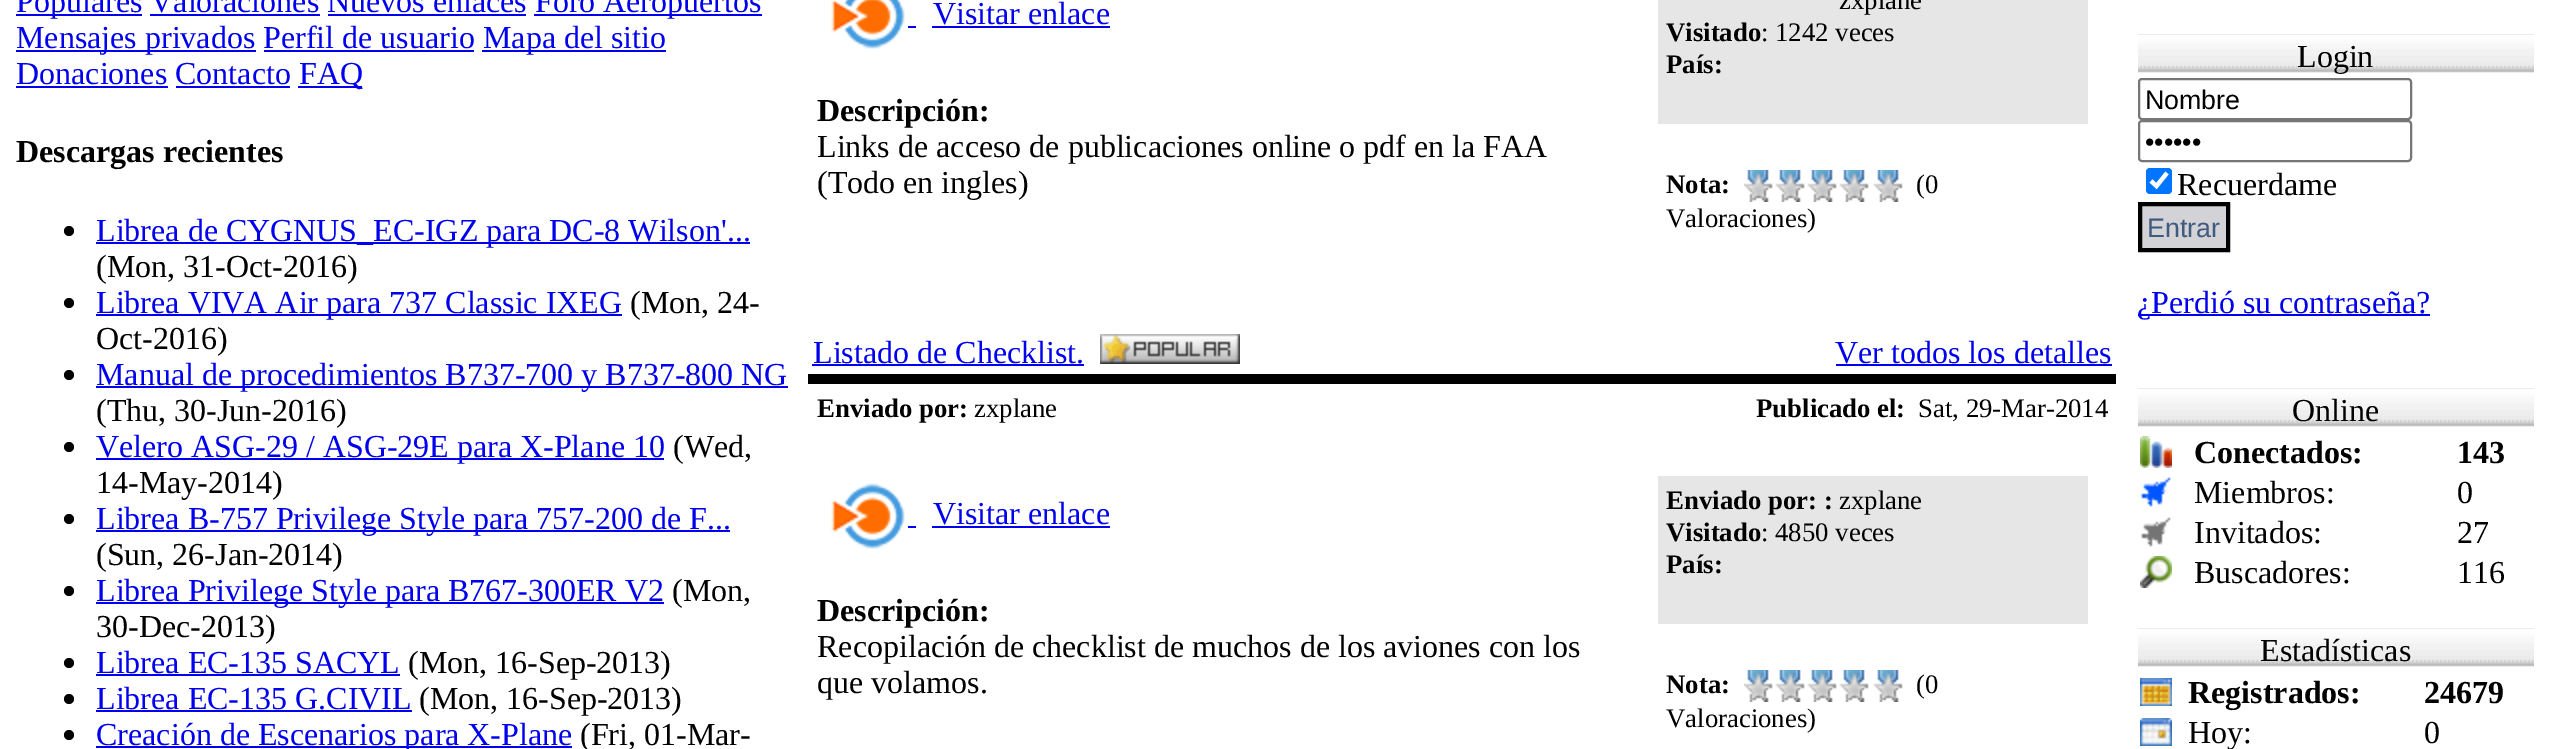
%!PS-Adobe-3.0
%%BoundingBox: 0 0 2551 749
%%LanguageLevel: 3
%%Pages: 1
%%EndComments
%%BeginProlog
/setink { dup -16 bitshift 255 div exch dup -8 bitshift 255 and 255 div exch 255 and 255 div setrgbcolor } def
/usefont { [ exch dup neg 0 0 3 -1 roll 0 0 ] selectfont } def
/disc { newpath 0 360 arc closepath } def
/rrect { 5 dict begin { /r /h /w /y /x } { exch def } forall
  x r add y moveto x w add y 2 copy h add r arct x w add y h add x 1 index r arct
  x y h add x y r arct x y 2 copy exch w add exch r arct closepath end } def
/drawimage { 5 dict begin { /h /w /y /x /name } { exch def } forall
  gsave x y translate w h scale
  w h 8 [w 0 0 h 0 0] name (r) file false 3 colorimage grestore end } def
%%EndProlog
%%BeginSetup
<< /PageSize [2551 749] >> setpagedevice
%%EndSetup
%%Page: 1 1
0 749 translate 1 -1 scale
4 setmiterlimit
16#FFFFFF setink
0 0 2551 749 rectfill
16#0000EE setink
16 14 126 2 rectfill
/LiberationSerif-Regular 32 usefont
16 12 moveto (Populares Valoraciones Nuevos enlaces Foro) show
534 14 228 2 rectfill
603 12 moveto (Aeropuertos) show
[
    [150 14 170 2 16#0000EE]
    [328 14 198 2 16#0000EE]
    [16 50 240 2 16#0000EE]
] { aload pop setink rectfill } forall
16 48 moveto (Mensajes privados Perfil de usuario) show
482 50 184 2 rectfill
483 48 moveto (Mapa del sitio) show
264 50 210 2 rectfill
16 84 moveto (Donaciones Contacto) show
16 86 152 2 rectfill
298 86 64 2 rectfill
299 84 moveto (FAQ) show
176 86 114 2 rectfill
/LiberationSerif-Bold 32 usefont
16#000000 setink
16 162 moveto (Descargas recientes) show
69 231 5 disc fill
16#0000EE setink
96 242 654 2 rectfill
/LiberationSerif-Regular 32 usefont
96 241 moveto (Librea de CYGNUS_EC-IGZ para DC-8 Wilson'...) show
16#000000 setink
96 277 moveto (\(Mon, 31-Oct-2016\)) show
69 303 5 disc fill
16#0000EE setink
96 314 526 2 rectfill
96 313 moveto (Librea VIVA Air para 737 Classic IXEG) show
16#000000 setink
630 313 moveto (\(Mon, 24-) show
96 349 moveto (Oct-2016\)) show
69 375 5 disc fill
16#0000EE setink
96 386 692 2 rectfill
96 385 moveto (Manual de procedimientos B737-700 y B737-800 NG) show
16#000000 setink
96 421 moveto (\(Thu, 30-Jun-2016\)) show
69 447 5 disc fill
16#0000EE setink
96 458 568 2 rectfill
96 457 moveto (Velero ASG-29 / ASG-29E para X-Plane 10) show
16#000000 setink
673 457 moveto (\(Wed,) show
96 493 moveto (14-May-2014\)) show
69 519 5 disc fill
16#0000EE setink
96 530 634 2 rectfill
96 529 moveto (Librea B-757 Privilege Style para 757-200 de F...) show
16#000000 setink
96 565 moveto (\(Sun, 26-Jan-2014\)) show
69 591 5 disc fill
16#0000EE setink
96 602 568 2 rectfill
96 601 moveto (Librea Privilege Style para B767-300ER V2) show
16#000000 setink
672 601 moveto (\(Mon,) show
96 637 moveto (30-Dec-2013\)) show
69 663 5 disc fill
16#0000EE setink
96 673 moveto (Librea EC-135 SACYL) show
96 674 304 2 rectfill
16#000000 setink
408 673 moveto (\(Mon, 16-Sep-2013\)) show
69 699 5 disc fill
16#0000EE setink
96 709 moveto (Librea EC-135 G.CIVIL) show
96 710 316 2 rectfill
16#000000 setink
419 709 moveto (\(Mon, 16-Sep-2013\)) show
69 735 5 disc fill
16#0000EE setink
96 746 476 2 rectfill
96 745 moveto (Creación de Escenarios para X-Plane) show
16#000000 setink
580 745 moveto (\(Fri, 01-Mar-) show
(img1.raw) 831 0 74 49 drawimage
16#0000EE setink
933 24 moveto (Visitar enlace) show
932 26 178 2 rectfill
908 26 8 2 rectfill
/LiberationSerif-Bold 32 usefont
16#000000 setink
817 121 moveto (Descripción:) show
/LiberationSerif-Regular 32 usefont
817 157 moveto (Links de acceso de publicaciones online o pdf en la FAA) show
817 193 moveto (\(Todo en ingles\)) show
16#E6E6E6 setink
1658 0 430 124 rectfill
/LiberationSerif-Regular 26.75 usefont
16#000000 setink
1839 9 moveto (zxplane) show
/LiberationSerif-Bold 26.75 usefont
1666 41 moveto (Visitado) show
/LiberationSerif-Regular 26.75 usefont
1761 41 moveto (: 1242 veces) show
/LiberationSerif-Bold 26.75 usefont
1666 73 moveto (País:) show
1666 193 moveto (Nota:) show
(img2.raw) 1744 170 159 32 drawimage
/LiberationSerif-Regular 26.75 usefont
1916 193 moveto (\(0) show
1666 227 moveto (Valoraciones\)) show
/LiberationSerif-Regular 32 usefont
16#0000EE setink
813 363 moveto (Listado de Checklist.) show
812 364 272 2 rectfill
(img3.raw) 1100 334 140 30 drawimage
1835 363 moveto (Ver todos los detalles) show
1836 364 276 2 rectfill
16#000000 setink
808 374 1308 10 rectfill
/LiberationSerif-Bold 26.75 usefont
817 417 moveto (Enviado por:) show
/LiberationSerif-Regular 26.75 usefont
974 417 moveto (zxplane) show
/LiberationSerif-Bold 26.75 usefont
1756 417 moveto (Publicado el:) show
/LiberationSerif-Regular 26.75 usefont
1918 417 moveto (Sat, 29-Mar-2014) show
(img4.raw) 831 483 74 66 drawimage
/LiberationSerif-Regular 32 usefont
16#0000EE setink
933 524 moveto (Visitar enlace) show
932 526 178 2 rectfill
908 526 8 2 rectfill
/LiberationSerif-Bold 32 usefont
16#000000 setink
817 621 moveto (Descripción:) show
/LiberationSerif-Regular 32 usefont
817 657 moveto (Recopilación de checklist de muchos de los aviones con los) show
817 693 moveto (que volamos.) show
16#E6E6E6 setink
1658 476 430 148 rectfill
/LiberationSerif-Bold 26.75 usefont
16#000000 setink
1666 509 moveto (Enviado por: :) show
/LiberationSerif-Regular 26.75 usefont
1839 509 moveto (zxplane) show
/LiberationSerif-Bold 26.75 usefont
1666 541 moveto (Visitado) show
/LiberationSerif-Regular 26.75 usefont
1761 541 moveto (: 4850 veces) show
/LiberationSerif-Bold 26.75 usefont
1666 573 moveto (País:) show
1666 693 moveto (Nota:) show
(img2.raw) 1744 670 159 32 drawimage
/LiberationSerif-Regular 26.75 usefont
1916 693 moveto (\(0) show
1666 727 moveto (Valoraciones\)) show
(img5.raw) 2138 34 396 39 drawimage
/LiberationSerif-Regular 32 usefont
2297 67 moveto (Login) show
16#767676 setink
2 setlinewidth
2139 79 272 40 3 rrect stroke
/LiberationSans-Regular 26.75 usefont
16#000000 setink
2145 109 moveto (Nombre) show
16#767676 setink
2139 121 272 40 3 rrect stroke
16#000000 setink
2145 151 moveto (••••••) show
16#0075FF setink
2146 168 26 26 4 rrect fill
16#FFFFFF setink
4.2 setlinewidth
2151 181 moveto 2156.5 186 lineto 2167 173 lineto stroke
/LiberationSerif-Regular 32 usefont
16#000000 setink
2177 195 moveto (Recuerdame) show
16#D3D2D6 setink
2140 204 moveto 2228 204 lineto 2228 250 lineto 2140 250 lineto closepath gsave fill grestore
16#000000 setink
4 setlinewidth
stroke
/LiberationSans-Regular 26.75 usefont
16#405A80 setink
2147 237 moveto (Entrar) show
16#0000EE setink
2138 314 292 2 rectfill
/LiberationSerif-Regular 32 usefont
2137 313 moveto (¿Perdió su contraseña?) show
(img5.raw) 2138 388 396 39 drawimage
16#000000 setink
2292 421 moveto (Online) show
(img6.raw) 2140 436 32 32 drawimage
/LiberationSerif-Bold 32 usefont
2194 463 moveto (Conectados:) show
2457 463 moveto (143) show
(img7.raw) 2140 477 31 30 drawimage
/LiberationSerif-Regular 32 usefont
2194 503 moveto (Miembros:) show
2457 503 moveto (0) show
(img8.raw) 2140 517 31 30 drawimage
2194 543 moveto (Invitados:) show
2457 543 moveto (27) show
(img9.raw) 2140 556 32 32 drawimage
2194 583 moveto (Buscadores:) show
2457 583 moveto (116) show
(img5.raw) 2138 628 396 39 drawimage
2260 661 moveto (Estadísticas) show
(img10.raw) 2140 678 32 28 drawimage
/LiberationSerif-Bold 32 usefont
2188 703 moveto (Registrados:) show
2424 703 moveto (24679) show
(img11.raw) 2140 718 32 28 drawimage
/LiberationSerif-Regular 32 usefont
2188 743 moveto (Hoy:) show
2424 743 moveto (0) show
showpage
%%EOF
